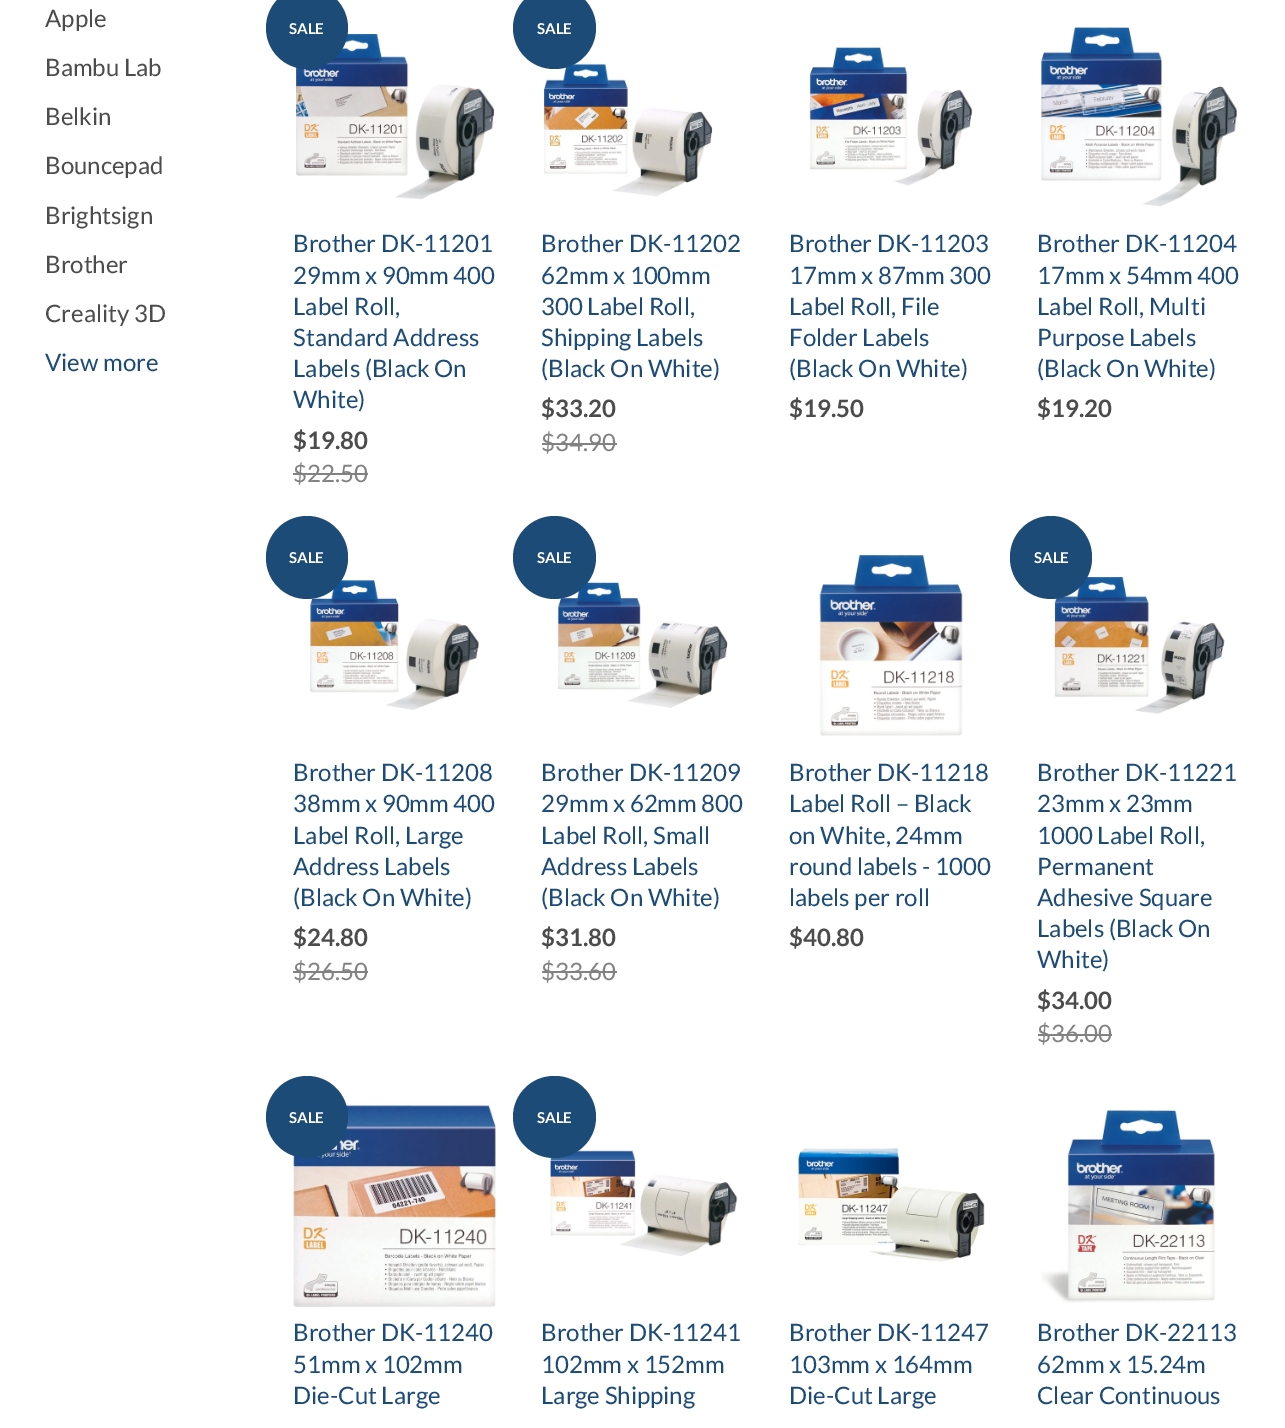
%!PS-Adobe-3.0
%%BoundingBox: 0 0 1285 1428
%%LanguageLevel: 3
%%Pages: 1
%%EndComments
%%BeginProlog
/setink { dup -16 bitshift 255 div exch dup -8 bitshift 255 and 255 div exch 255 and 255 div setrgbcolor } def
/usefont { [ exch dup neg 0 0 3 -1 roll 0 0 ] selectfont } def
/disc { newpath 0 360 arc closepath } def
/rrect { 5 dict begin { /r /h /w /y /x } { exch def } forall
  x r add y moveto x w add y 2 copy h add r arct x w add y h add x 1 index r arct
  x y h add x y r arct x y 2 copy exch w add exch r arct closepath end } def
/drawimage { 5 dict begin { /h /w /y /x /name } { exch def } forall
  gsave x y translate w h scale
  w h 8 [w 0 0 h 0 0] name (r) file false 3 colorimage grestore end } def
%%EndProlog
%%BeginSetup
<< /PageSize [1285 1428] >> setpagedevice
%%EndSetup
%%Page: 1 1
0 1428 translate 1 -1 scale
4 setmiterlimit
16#FFFFFF setink
0 0 1285 1428 rectfill
/Lato-Regular 24 usefont
16#4C4C4C setink
[
    [(Apple) 45 27]
    [(Bambu Lab) 45 76]
    [(Belkin) 45 125]
    [(Bouncepad) 45 174]
    [(Brightsign) 45 224]
    [(Brother) 45 273]
    [(Creality 3D) 45 322]
] { aload pop moveto show } forall
16#1D4B78 setink
45 371 moveto (View more) show
(img1.raw) 296 34 199 166 drawimage
307 28 41 disc fill
/Lato-Bold 15 usefont
16#FFFFFF setink
289 34 moveto (SALE) show
/Lato-Regular 24 usefont
16#1D4B78 setink
[
    [(Brother DK-11201) 293 252]
    [(29mm x 90mm 400) 293 284]
    [(Label Roll,) 293 315]
    [(Standard Address) 293 346]
    [(Labels \(Black On) 293 377]
    [(White\)) 293 408]
] { aload pop moveto show } forall
/Lato-Bold 24 usefont
16#4C4C4C setink
293 449 moveto ($19.80) show
/Lato-Regular 24 usefont
16#828282 setink
293 482 moveto ($22.50) show
293 473 75 2 rectfill
(img2.raw) 543 63 170 134 drawimage
16#1D4B78 setink
513 -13 83 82 41 rrect fill
/Lato-Bold 15 usefont
16#FFFFFF setink
537 34 moveto (SALE) show
/Lato-Regular 24 usefont
16#1D4B78 setink
[
    [(Brother DK-11202) 541 252]
    [(62mm x 100mm) 541 284]
    [(300 Label Roll,) 541 315]
    [(Shipping Labels) 541 346]
    [(\(Black On White\)) 541 377]
] { aload pop moveto show } forall
/Lato-Bold 24 usefont
16#4C4C4C setink
541 417 moveto ($33.20) show
/Lato-Regular 24 usefont
16#828282 setink
541 451 moveto ($34.90) show
542 443 75 2 rectfill
(img3.raw) 809 47 164 139 drawimage
16#1D4B78 setink
[
    [(Brother DK-11203) 789 252]
    [(17mm x 87mm 300) 789 284]
    [(Label Roll, File) 789 315]
    [(Folder Labels) 789 346]
    [(\(Black On White\)) 789 377]
] { aload pop moveto show } forall
/Lato-Bold 24 usefont
16#4C4C4C setink
789 417 moveto ($19.50) show
(img4.raw) 1041 27 197 180 drawimage
/Lato-Regular 24 usefont
16#1D4B78 setink
[
    [(Brother DK-11204) 1037 252]
    [(17mm x 54mm 400) 1037 284]
    [(Label Roll, Multi) 1037 315]
    [(Purpose Labels) 1037 346]
    [(\(Black On White\)) 1037 377]
] { aload pop moveto show } forall
/Lato-Bold 24 usefont
16#4C4C4C setink
1037 417 moveto ($19.20) show
(img5.raw) 310 580 169 130 drawimage
16#1D4B78 setink
266 516 82 83 41 rrect fill
/Lato-Bold 15 usefont
16#FFFFFF setink
289 563 moveto (SALE) show
/Lato-Regular 24 usefont
16#1D4B78 setink
[
    [(Brother DK-11208) 293 781]
    [(38mm x 90mm 400) 293 812]
    [(Label Roll, Large) 293 844]
    [(Address Labels) 293 875]
    [(\(Black On White\)) 293 906]
] { aload pop moveto show } forall
/Lato-Bold 24 usefont
16#4C4C4C setink
293 946 moveto ($24.80) show
/Lato-Regular 24 usefont
16#828282 setink
293 980 moveto ($26.50) show
293 971 75 2 rectfill
(img6.raw) 557 582 171 126 drawimage
16#1D4B78 setink
554.5 557.5 41.5 disc fill
/Lato-Bold 15 usefont
16#FFFFFF setink
537 563 moveto (SALE) show
/Lato-Regular 24 usefont
16#1D4B78 setink
[
    [(Brother DK-11209) 541 781]
    [(29mm x 62mm 800) 541 812]
    [(Label Roll, Small) 541 844]
    [(Address Labels) 541 875]
    [(\(Black On White\)) 541 906]
] { aload pop moveto show } forall
/Lato-Bold 24 usefont
16#4C4C4C setink
541 946 moveto ($31.80) show
/Lato-Regular 24 usefont
16#828282 setink
541 980 moveto ($33.60) show
542 971 75 2 rectfill
(img7.raw) 819 555 144 181 drawimage
16#1D4B78 setink
[
    [(Brother DK-11218) 789 781]
    [(Label Roll – Black) 789 812]
    [(on White, 24mm) 789 844]
    [(round labels - 1000) 789 875]
    [(labels per roll) 789 906]
] { aload pop moveto show } forall
/Lato-Bold 24 usefont
16#4C4C4C setink
789 946 moveto ($40.80) show
(img8.raw) 1054 576 171 138 drawimage
16#1D4B78 setink
1010 516 82 83 41 rrect fill
/Lato-Bold 15 usefont
16#FFFFFF setink
1034 563 moveto (SALE) show
/Lato-Regular 24 usefont
16#1D4B78 setink
[
    [(Brother DK-11221) 1037 781]
    [(23mm x 23mm) 1037 812]
    [(1000 Label Roll,) 1037 844]
    [(Permanent) 1037 875]
    [(Adhesive Square) 1037 906]
    [(Labels \(Black On) 1037 937]
    [(White\)) 1037 968]
] { aload pop moveto show } forall
/Lato-Bold 24 usefont
16#4C4C4C setink
1037 1009 moveto ($34.00) show
/Lato-Regular 24 usefont
16#828282 setink
1037 1042 moveto ($36.00) show
1038 1034 74 2 rectfill
(img9.raw) 293 1102 203 205 drawimage
16#1D4B78 setink
307 1117 41 disc fill
/Lato-Bold 15 usefont
16#FFFFFF setink
289 1123 moveto (SALE) show
/Lato-Regular 24 usefont
16#1D4B78 setink
[
    [(Brother DK-11240) 293 1341]
    [(51mm x 102mm) 293 1373]
    [(Die-Cut Large) 293 1404]
] { aload pop moveto show } forall
(img10.raw) 550 1150 188 107 drawimage
513 1076 83 82 41 rrect fill
/Lato-Bold 15 usefont
16#FFFFFF setink
537 1123 moveto (SALE) show
/Lato-Regular 24 usefont
16#1D4B78 setink
[
    [(Brother DK-11241) 541 1341]
    [(102mm x 152mm) 541 1373]
    [(Large Shipping) 541 1404]
] { aload pop moveto show } forall
(img11.raw) 797 1148 188 114 drawimage
[
    [(Brother DK-11247) 789 1341]
    [(103mm x 164mm) 789 1373]
    [(Die-Cut Large) 789 1404]
] { aload pop moveto show } forall
(img12.raw) 1041 1110 175 193 drawimage
[
    [(Brother DK-22113) 1037 1341]
    [(62mm x 15.24m) 1037 1373]
    [(Clear Continuous) 1037 1404]
] { aload pop moveto show } forall
showpage
%%EOF
